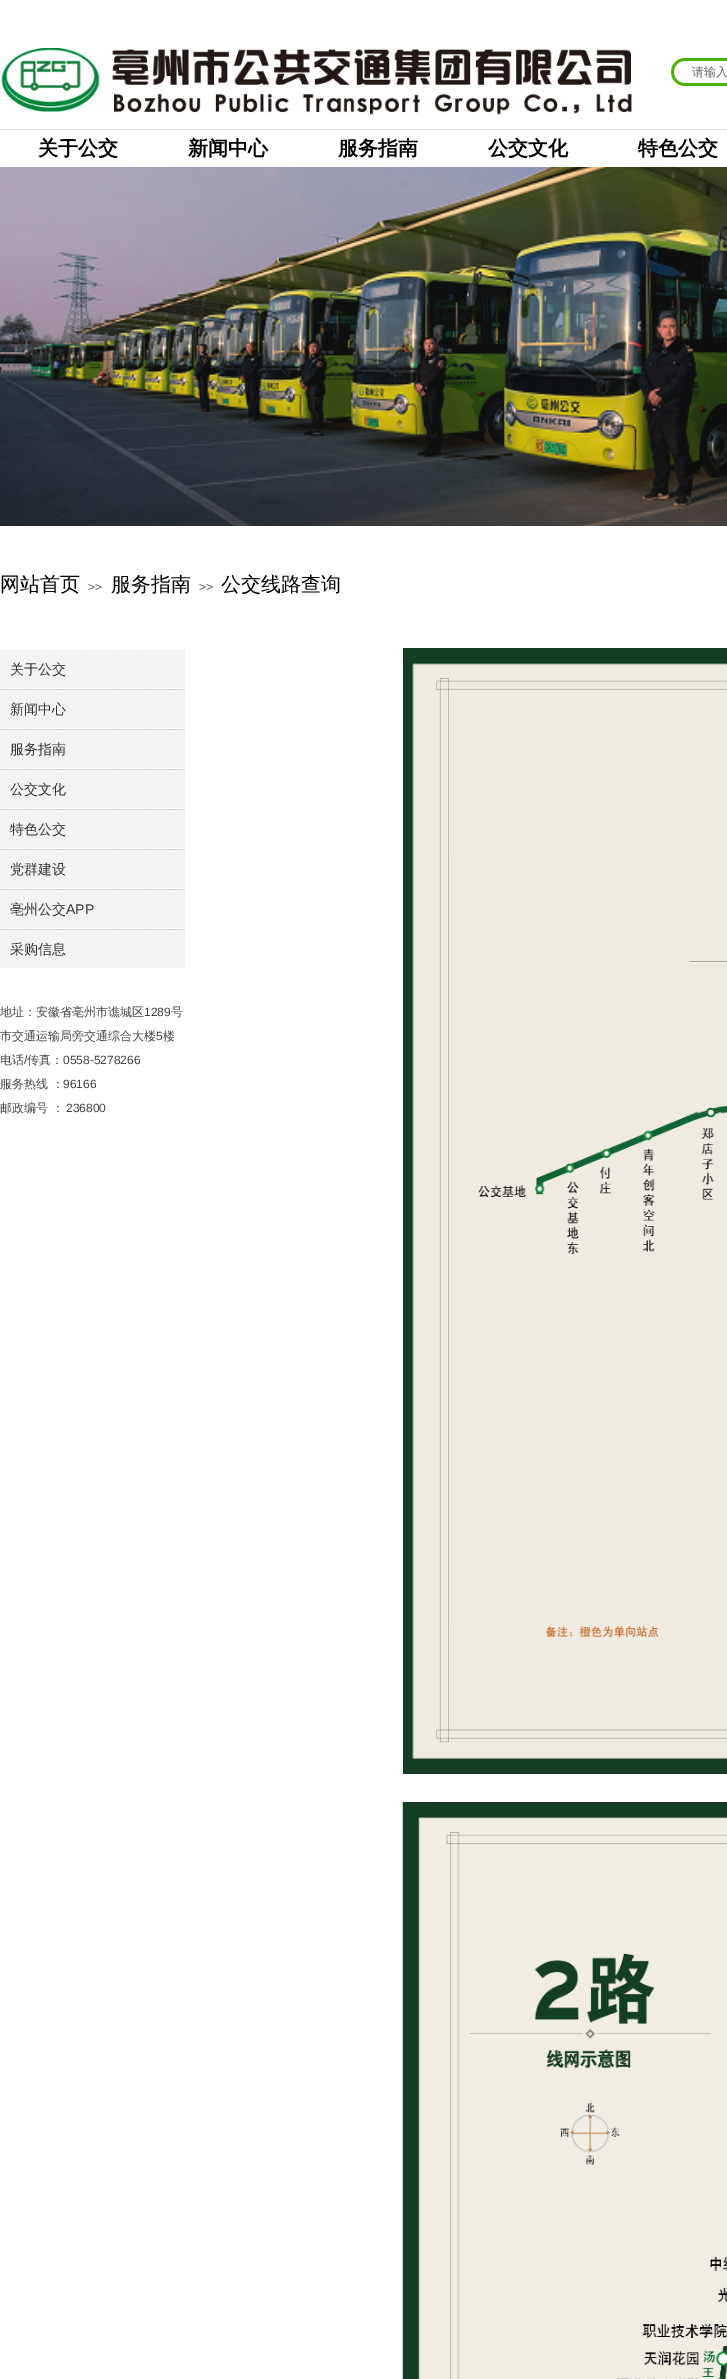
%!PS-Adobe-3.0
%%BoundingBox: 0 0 727 2379
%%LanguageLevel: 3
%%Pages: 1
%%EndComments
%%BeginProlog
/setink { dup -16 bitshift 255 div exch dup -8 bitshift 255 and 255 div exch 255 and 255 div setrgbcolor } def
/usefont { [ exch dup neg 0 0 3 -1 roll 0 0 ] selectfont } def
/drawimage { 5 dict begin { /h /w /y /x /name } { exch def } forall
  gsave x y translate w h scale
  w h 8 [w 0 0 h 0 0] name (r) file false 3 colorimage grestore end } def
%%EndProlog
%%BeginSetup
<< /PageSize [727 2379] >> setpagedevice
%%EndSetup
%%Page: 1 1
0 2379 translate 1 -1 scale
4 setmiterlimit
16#FFFFFF setink
0 0 727 2379 rectfill
(img1.raw) 0 47 632 68 drawimage
(img2.raw) 671 58 56 28 drawimage
/WenQuanYiZenHei-Medium 12 usefont
16#666666 setink
692 76 moveto (请输入) show
16#D9D9D9 setink
0 129 727 1 rectfill
/WenQuanYiZenHei-Bold 20 usefont
16#000000 setink
[
    [(关于公交) 38 155]
    [(新闻中心) 188 155]
    [(服务指南) 338 155]
    [(公交文化) 488 155]
    [(特色公交) 638 155]
] { aload pop moveto show } forall
(img3.raw) 0 167 727 359 drawimage
/WenQuanYiZenHei-Medium 20 usefont
0 591 moveto (网站首页) show
/LiberationSans-Regular 12 usefont
16#5A5A5A setink
88 591 moveto (>>) show
/WenQuanYiZenHei-Medium 20 usefont
16#000000 setink
111 591 moveto (服务指南) show
/LiberationSans-Regular 12 usefont
16#5A5A5A setink
199 591 moveto (>>) show
/WenQuanYiZenHei-Medium 20 usefont
16#000000 setink
221 591 moveto (公交线路查询) show
(img4.raw) 0 650 185 39 drawimage
16#D0D0D0 setink
0 689 185 1 rectfill
/WenQuanYiZenHei-Medium 14 usefont
16#333333 setink
10 674 moveto (关于公交) show
(img4.raw) 0 690 185 39 drawimage
16#D0D0D0 setink
0 729 185 1 rectfill
16#333333 setink
10 714 moveto (新闻中心) show
(img4.raw) 0 730 185 39 drawimage
16#D0D0D0 setink
0 769 185 1 rectfill
16#333333 setink
10 754 moveto (服务指南) show
(img4.raw) 0 770 185 39 drawimage
16#D0D0D0 setink
0 809 185 1 rectfill
16#333333 setink
10 794 moveto (公交文化) show
(img4.raw) 0 810 185 39 drawimage
16#D0D0D0 setink
0 849 185 1 rectfill
16#333333 setink
10 834 moveto (特色公交) show
(img4.raw) 0 850 185 39 drawimage
16#D0D0D0 setink
0 889 185 1 rectfill
16#333333 setink
10 874 moveto (党群建设) show
(img4.raw) 0 890 185 39 drawimage
16#D0D0D0 setink
0 929 185 1 rectfill
16#333333 setink
10 914 moveto (亳州公交) show
/LiberationSans-Regular 14 usefont
66 914 moveto (APP) show
(img4.raw) 0 930 185 39 drawimage
/WenQuanYiZenHei-Medium 14 usefont
10 954 moveto (采购信息) show
(img5.raw) 403 648 324 1126 drawimage
/WenQuanYiZenHei-Medium 12 usefont
16#444444 setink
0 1016 moveto (地址：安徽省亳州市谯城区) show
/LiberationSans-Regular 12 usefont
144 1016 moveto (1289) show
/WenQuanYiZenHei-Medium 12 usefont
171 1016 moveto (号) show
0 1040 moveto (市交通运输局旁交通综合大楼) show
/LiberationSans-Regular 12 usefont
156 1040 moveto (5) show
/WenQuanYiZenHei-Medium 12 usefont
163 1040 moveto (楼) show
0 1064 moveto (电话) show
/LiberationSans-Regular 12 usefont
24 1064 moveto (/) show
/WenQuanYiZenHei-Medium 12 usefont
27 1064 moveto (传真：) show
/LiberationSans-Regular 12 usefont
63 1064 moveto (0558-5278266) show
/WenQuanYiZenHei-Medium 12 usefont
0 1088 moveto (服务热线 ：) show
/LiberationSans-Regular 12 usefont
63 1088 moveto (96166) show
/WenQuanYiZenHei-Medium 12 usefont
0 1112 moveto (邮政编号 ：) show
/LiberationSans-Regular 12 usefont
66 1112 moveto (236800) show
(img6.raw) 402 1802 325 577 drawimage
showpage
%%EOF
